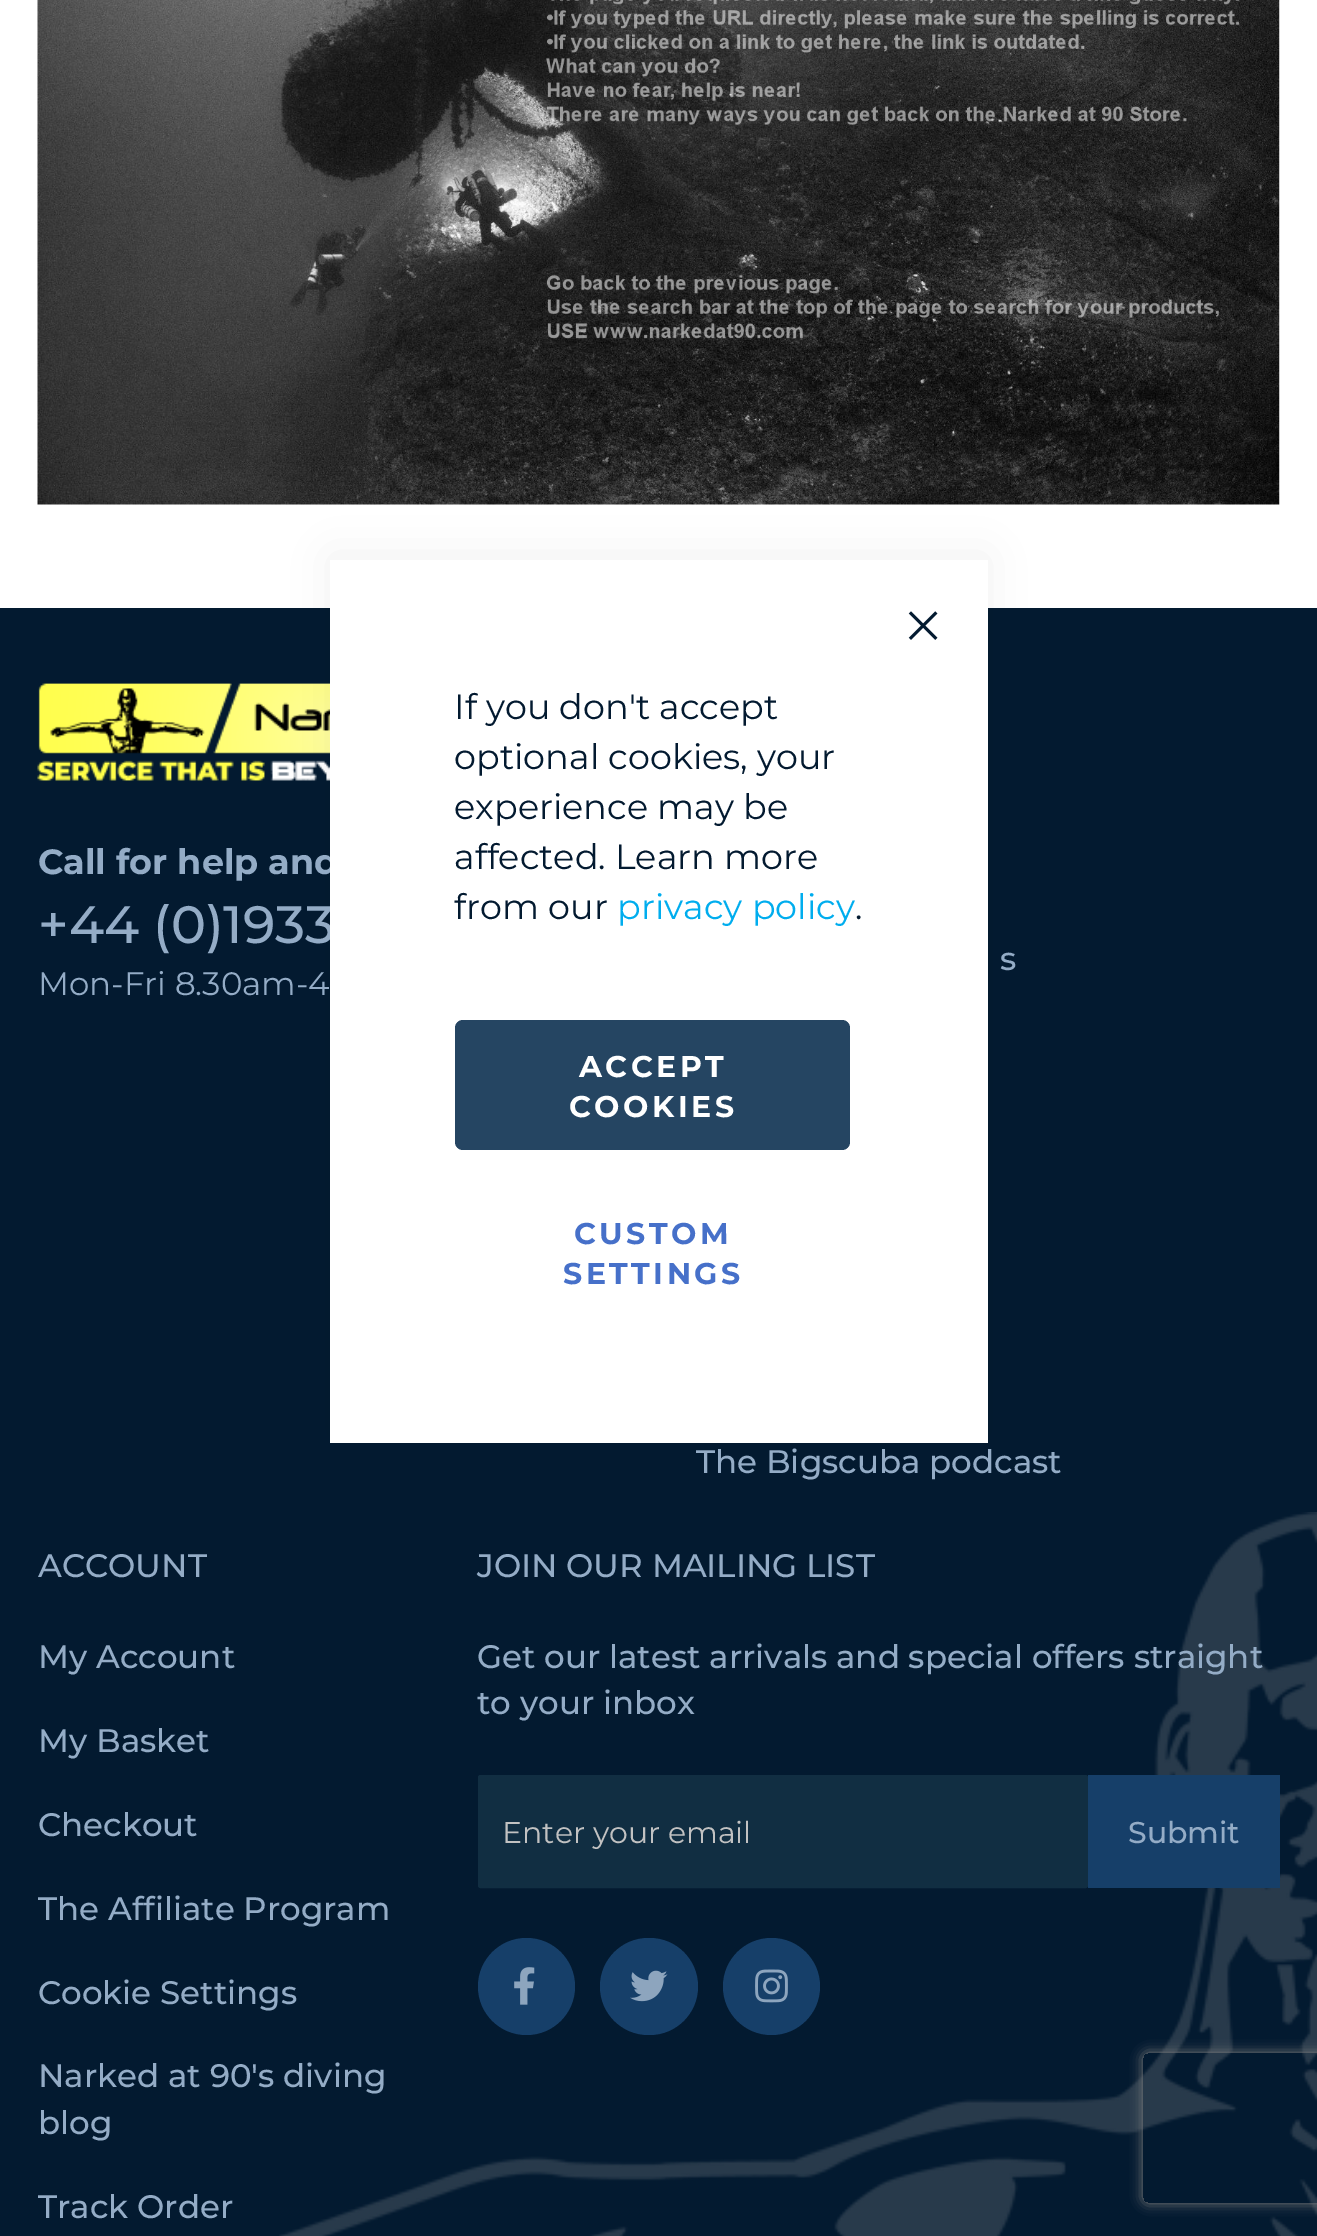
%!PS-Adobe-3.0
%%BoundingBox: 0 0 1317 2236
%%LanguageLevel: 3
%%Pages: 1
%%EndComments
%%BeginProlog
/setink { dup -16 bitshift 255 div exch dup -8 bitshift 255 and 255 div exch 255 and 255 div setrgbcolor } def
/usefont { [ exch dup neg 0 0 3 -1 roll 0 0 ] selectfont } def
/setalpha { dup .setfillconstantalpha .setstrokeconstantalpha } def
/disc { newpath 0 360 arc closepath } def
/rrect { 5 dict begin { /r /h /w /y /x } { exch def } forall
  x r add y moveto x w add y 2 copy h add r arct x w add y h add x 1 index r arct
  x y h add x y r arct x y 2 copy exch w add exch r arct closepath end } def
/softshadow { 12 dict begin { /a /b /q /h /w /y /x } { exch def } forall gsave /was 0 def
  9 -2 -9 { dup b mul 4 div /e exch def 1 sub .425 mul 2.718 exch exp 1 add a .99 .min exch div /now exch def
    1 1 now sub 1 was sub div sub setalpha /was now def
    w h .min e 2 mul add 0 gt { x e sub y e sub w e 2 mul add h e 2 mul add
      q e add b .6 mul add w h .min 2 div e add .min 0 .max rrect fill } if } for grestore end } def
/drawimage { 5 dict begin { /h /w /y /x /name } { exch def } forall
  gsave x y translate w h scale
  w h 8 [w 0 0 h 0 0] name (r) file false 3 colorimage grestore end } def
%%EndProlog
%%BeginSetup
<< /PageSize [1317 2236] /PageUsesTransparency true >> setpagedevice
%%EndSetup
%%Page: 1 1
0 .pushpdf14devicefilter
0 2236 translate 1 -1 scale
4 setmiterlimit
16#FFFFFF setink
0 0 1317 2236 rectfill
(img2.raw) 37 0 1243 505 drawimage
16#031A30 setink
0 608 1317 1628 rectfill
(img4.raw) 37 683 293 98 drawimage
16#000000 setink
330 555 658 883 0 22.5 0.06 softshadow
/Montserrat-Bold 35 usefont
16#94ACC6 setink
38 874 moveto (Call for help and) show
/Montserrat-Medium 52.5 usefont
38 943 moveto (+44 \(0\)1933) show
16#FFFFFF setink
330 560 658 883 rectfill
(img1.raw) 908 611 30 29 drawimage
/Montserrat-Regular 35 usefont
16#031A30 setink
[
    [(If you don't accept) 454 719]
    [(optional cookies, your) 454 769]
    [(experience may be) 454 819]
    [(affected. Learn more) 454 869]
    [(from our) 454 919]
] { aload pop moveto show } forall
16#00ADEE setink
617 919 moveto (privacy policy) show
16#031A30 setink
855 919 moveto (.) show
16#254562 setink
455 1020 395 130 8 rrect fill
/Montserrat-Bold 30 usefont
16#FFFFFF setink
579 1077 moveto 3.5 0 (ACCEPT) ashow
569 1117 moveto 3.5 0 (COOKIES) ashow
16#4670C9 setink
574 1244 moveto 3.5 0 (CUSTOM) ashow
563 1284 moveto 3.5 0 (SETTINGS) ashow
(img3.raw) 279 1512 1038 724 drawimage
/Montserrat-Regular 32.5 usefont
16#94ACC6 setink
38 995 moveto (Mon-Fri 8.30am-4) show
/Montserrat-Medium 32.5 usefont
[
    [(s) 1000 970]
    [(The Bigscuba podcast) 696 1473]
    [(ACCOUNT) 38 1577]
    [(My Account) 38 1668]
    [(My Basket) 38 1752]
    [(Checkout) 38 1836]
    [(The Affiliate Program) 38 1920]
    [(Cookie Settings) 38 2004]
    [(Narked at 90's diving) 38 2087]
    [(blog) 38 2134]
    [(Track Order) 38 2218]
    [(JOIN OUR MAILING LIST) 477 1577]
    [(Get our latest arrivals and special offers straight) 477 1668]
    [(to your inbox) 477 1714]
] { aload pop moveto show } forall
16#112E42 setink
479.5 1776.5 607 110 1 rrect gsave fill grestore
3 setlinewidth
stroke
/Montserrat-Regular 30 usefont
16#C2C2C2 setink
502 1843 moveto (Enter your email) show
16#163F69 setink
1088 1775 192 113 rectfill
/Montserrat-Medium 30 usefont
16#94ACC6 setink
1128 1843 moveto (Submit) show
16#163F69 setink
526.5 1986.5 48.5 disc fill
(img5.raw) 514 1967 21 38 drawimage
600 1938 98 97 48.5 rrect fill
(img6.raw) 630 1970 38 32 drawimage
771.5 1986.5 48.5 disc fill
(img7.raw) 755 1969 33 34 drawimage
gsave
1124 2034 moveto 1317 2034 lineto 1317 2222 lineto 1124 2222 lineto closepath 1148 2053 moveto 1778 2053 lineto 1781 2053 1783 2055 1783 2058 curveto 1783 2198 lineto 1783 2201 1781 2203 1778 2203 curveto 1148 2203 lineto 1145 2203 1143 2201 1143 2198 curveto 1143 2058 lineto 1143 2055 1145 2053 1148 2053 curveto closepath eoclip newpath
16#808080 setink
1143 2053 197 150 5 6 1 softshadow
grestore
.poppdf14devicefilter showpage
%%EOF
